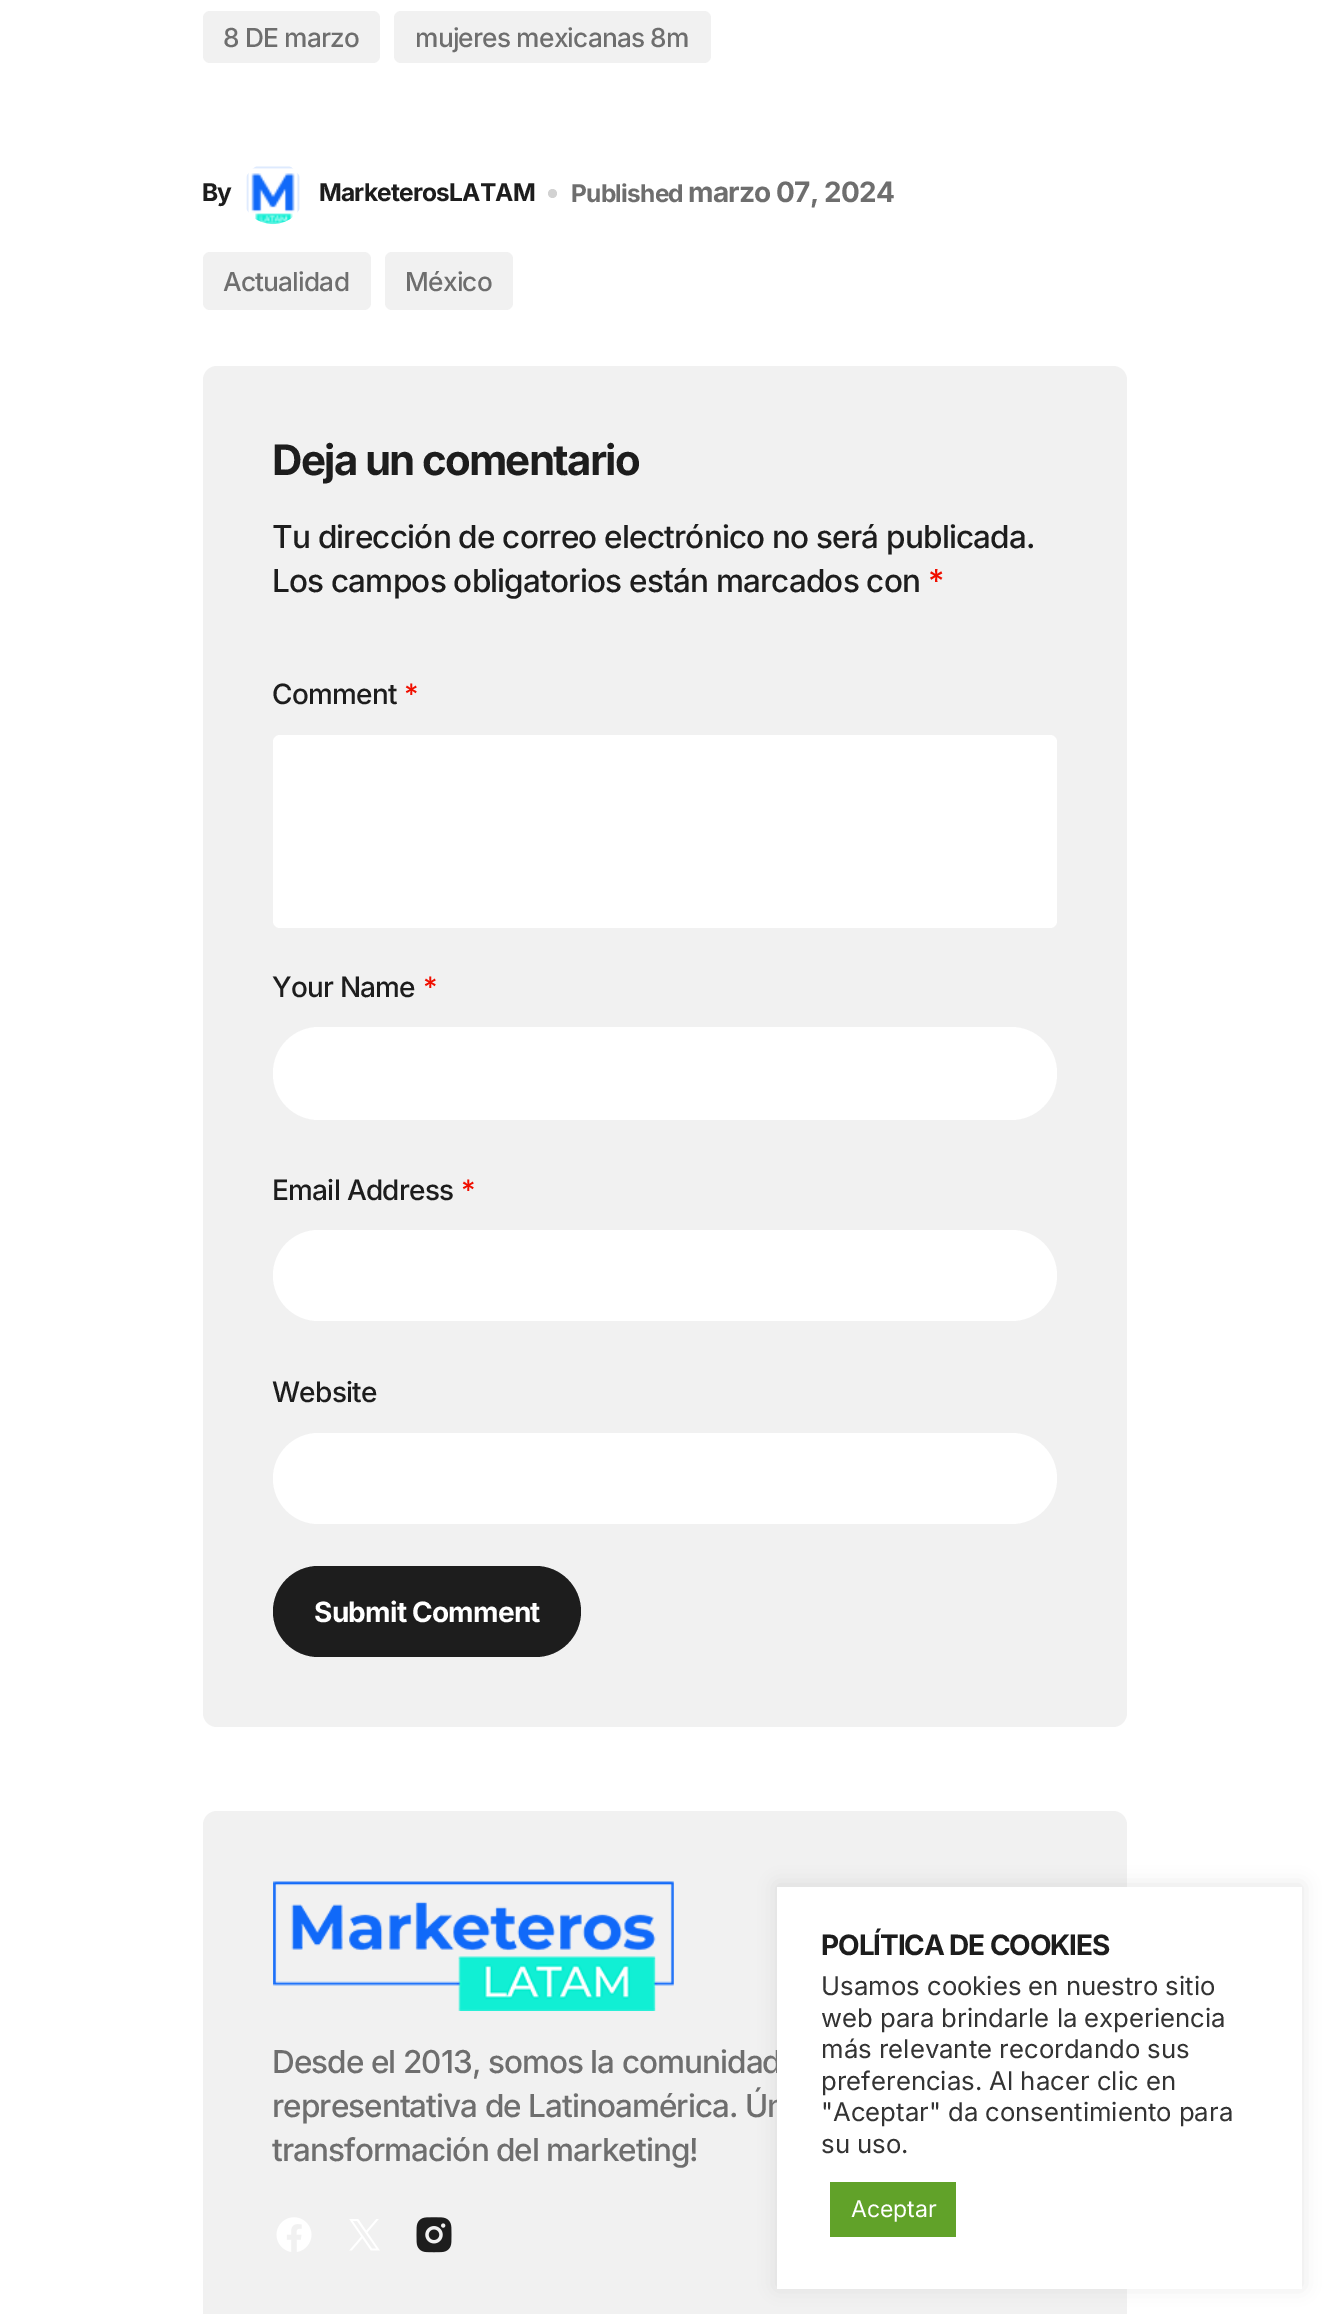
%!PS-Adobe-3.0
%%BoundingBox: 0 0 1328 2314
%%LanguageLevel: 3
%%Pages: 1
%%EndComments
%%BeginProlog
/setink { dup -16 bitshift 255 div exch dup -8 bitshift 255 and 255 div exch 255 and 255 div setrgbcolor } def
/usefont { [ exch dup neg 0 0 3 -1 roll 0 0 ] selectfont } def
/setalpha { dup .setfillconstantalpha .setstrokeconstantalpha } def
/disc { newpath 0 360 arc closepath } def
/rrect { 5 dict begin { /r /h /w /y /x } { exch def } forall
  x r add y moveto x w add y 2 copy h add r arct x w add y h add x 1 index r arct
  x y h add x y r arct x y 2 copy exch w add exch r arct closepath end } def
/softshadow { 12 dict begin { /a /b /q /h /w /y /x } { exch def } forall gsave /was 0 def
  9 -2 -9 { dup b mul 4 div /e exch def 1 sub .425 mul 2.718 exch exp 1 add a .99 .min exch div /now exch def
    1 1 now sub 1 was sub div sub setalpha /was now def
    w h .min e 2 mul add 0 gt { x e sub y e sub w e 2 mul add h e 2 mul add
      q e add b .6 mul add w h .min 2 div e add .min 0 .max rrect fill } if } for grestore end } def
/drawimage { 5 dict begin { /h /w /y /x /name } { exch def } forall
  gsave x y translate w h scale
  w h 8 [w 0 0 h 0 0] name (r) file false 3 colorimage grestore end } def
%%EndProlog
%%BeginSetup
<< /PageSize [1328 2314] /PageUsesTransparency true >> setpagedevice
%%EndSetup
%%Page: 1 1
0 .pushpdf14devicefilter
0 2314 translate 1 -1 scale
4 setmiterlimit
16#FFFFFF setink
0 0 1328 2314 rectfill
16#F1F1F1 setink
203 11 177 52 7 rrect fill
/Inter-Medium 26.25 usefont
16#6E6E6E setink
223 47 moveto -0.8 0 (8 DE marzo) ashow
16#F1F1F1 setink
394 11 317 52 7 rrect fill
16#6E6E6E setink
415 47 moveto -0.8 0 (mujeres mexicanas 8m) ashow
/Inter-Bold 24.5 usefont
16#1D1D1D setink
202 201 moveto -0.8 0 (By) ashow
(img1.raw) 246 166 54 59 drawimage
319 201 moveto -0.8 0 (MarketerosLATAM) ashow
16#D2D2D2 setink
552.5 193.5 4.5 disc fill
16#6E6E6E setink
571 202 moveto -0.75 0 (Published) ashow
/Inter-Bold 28 usefont
688 202 moveto -0.8 0 (marzo 07, 2024) ashow
16#F1F1F1 setink
203 252 168 58 7 rrect fill
/Inter-Medium 26.25 usefont
16#6E6E6E setink
223 291 moveto -0.8 0 (Actualidad) ashow
16#F1F1F1 setink
385 252 128 58 7 rrect fill
16#6E6E6E setink
405 291 moveto -0.8 0 (México) ashow
16#F1F1F1 setink
203 366 924 1361 14 rrect fill
/Inter-Bold 42 usefont
16#1D1D1D setink
272 475 moveto -1.7 0 (Deja un comentario) ashow
/Inter-Medium 31.5 usefont
272 548 moveto -0.8 0 (Tu dirección de correo electrónico no será publicada.) ashow
272 592 moveto -0.8 0 (Los campos obligatorios están marcados con) ashow
16#F00F00 setink
928 592 moveto -0.8 0 (*) ashow
/Inter-Medium 28 usefont
16#1D1D1D setink
272 704 moveto -0.75 0 (Comment) ashow
16#F00F00 setink
404 704 moveto -0.75 0 (*) ashow
16#FFFFFF setink
273 735 784 193 7 rrect fill
16#1D1D1D setink
272 997 moveto -0.75 0 (Your Name) ashow
16#F00F00 setink
423 997 moveto -0.75 0 (*) ashow
16#FFFFFF setink
273 1027 784 93 46 rrect fill
16#1D1D1D setink
272 1200 moveto -0.75 0 (Email Address) ashow
16#F00F00 setink
461 1200 moveto -0.75 0 (*) ashow
16#FFFFFF setink
273 1230 784 91 45.5 rrect fill
16#1D1D1D setink
272 1402 moveto -0.75 0 (Website) ashow
16#FFFFFF setink
273 1433 784 91 45.5 rrect fill
16#1D1D1D setink
273 1566 308 91 45.5 rrect fill
/Inter-Bold 28 usefont
16#FFFFFF setink
314 1622 moveto -0.8 0 (Submit Comment) ashow
16#F1F1F1 setink
203 1811 924 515 14 rrect fill
(img2.raw) 273 1881 401 130 drawimage
/Inter-Medium 31.5 usefont
16#6E6E6E setink
272 2073 moveto -0.95 0 (Desde el 2013, somos la comunidad) ashow
272 2117 moveto -0.95 0 (representativa de Latinoamérica. Ún) ashow
272 2161 moveto -0.95 0 (transformación del marketing!) ashow
(img3.raw) 276 2217 36 35 drawimage
(img4.raw) 349 2219 31 32 drawimage
(img5.raw) 416 2217 36 36 drawimage
16#ACABAB setink
777 1885 525 402 0 9 0.3 softshadow
16#FFFFFF setink
777 1887 525 402 rectfill
/Inter-Bold 28 usefont
16#1D1D1D setink
821 1955 moveto -1.1 0 (POLÍTICA DE COOKIES) ashow
/Inter-Regular 25.7 usefont
16#333333 setink
[
    [(Usamos cookies en nuestro sitio) 821 1995]
    [(web para brindarle la experiencia) 821 2027]
    [(más relevante recordando sus) 821 2058]
    [(preferencias. Al hacer clic en) 821 2090]
    [("Aceptar" da consentimiento para) 821 2121]
    [(su uso.) 821 2153]
] { aload pop moveto show } forall
16#61A229 setink
830 2182 126 55 rectfill
/Inter-Regular 23 usefont
16#FFFFFF setink
851 2217 moveto (Aceptar) show
.poppdf14devicefilter showpage
%%EOF
